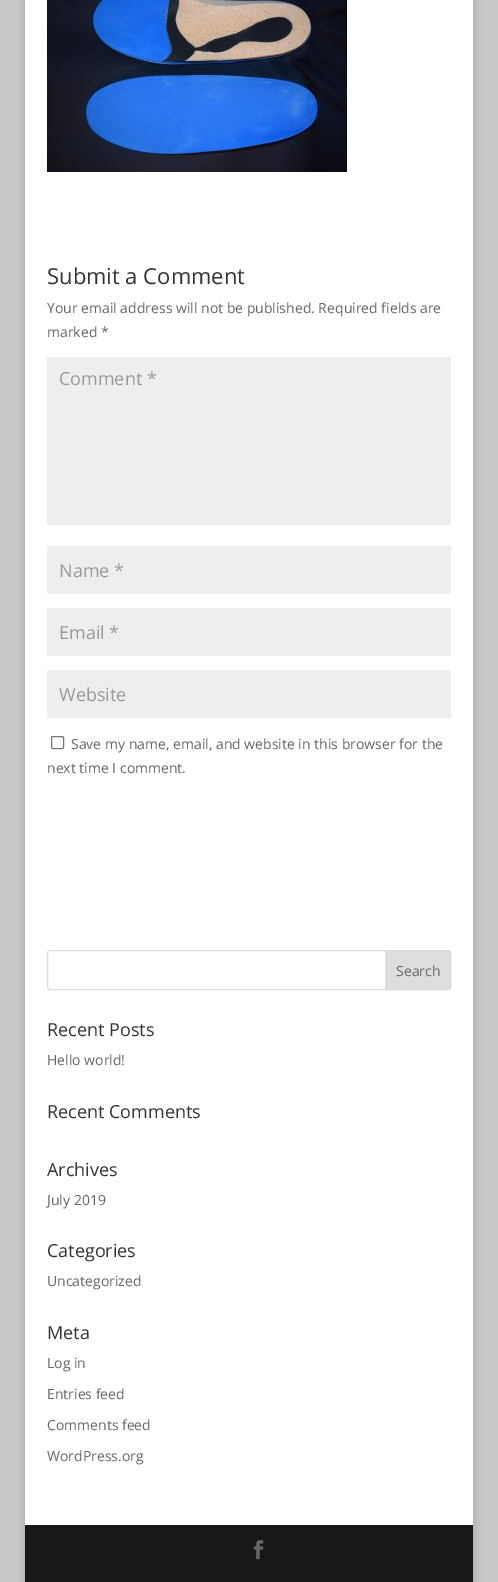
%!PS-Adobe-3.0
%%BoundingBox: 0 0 498 1582
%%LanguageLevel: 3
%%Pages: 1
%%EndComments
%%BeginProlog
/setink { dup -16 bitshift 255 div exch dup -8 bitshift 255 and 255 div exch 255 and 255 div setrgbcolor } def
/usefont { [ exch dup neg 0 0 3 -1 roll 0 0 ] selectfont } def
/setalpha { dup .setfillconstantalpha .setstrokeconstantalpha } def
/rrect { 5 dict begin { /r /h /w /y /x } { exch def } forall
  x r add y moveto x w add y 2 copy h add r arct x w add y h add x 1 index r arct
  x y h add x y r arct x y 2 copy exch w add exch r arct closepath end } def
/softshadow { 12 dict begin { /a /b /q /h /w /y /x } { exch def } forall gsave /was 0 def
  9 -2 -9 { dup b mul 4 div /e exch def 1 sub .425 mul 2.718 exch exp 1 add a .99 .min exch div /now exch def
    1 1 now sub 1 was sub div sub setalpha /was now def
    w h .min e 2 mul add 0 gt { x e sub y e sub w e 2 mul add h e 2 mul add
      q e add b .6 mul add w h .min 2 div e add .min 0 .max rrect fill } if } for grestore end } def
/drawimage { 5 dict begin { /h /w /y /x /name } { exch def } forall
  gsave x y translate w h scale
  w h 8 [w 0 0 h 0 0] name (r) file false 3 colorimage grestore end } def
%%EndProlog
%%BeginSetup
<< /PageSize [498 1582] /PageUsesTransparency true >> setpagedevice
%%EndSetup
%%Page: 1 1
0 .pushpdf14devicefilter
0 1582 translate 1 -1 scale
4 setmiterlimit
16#C9C9C9 setink
0 0 498 1582 rectfill
16#000000 setink
25 -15 448 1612 0 5 0.2 softshadow
16#FFFFFF setink
25 0 448 1525 rectfill
(img1.raw) 47 0 300 172 drawimage
/OpenSans-Regular 22 usefont
16#333333 setink
47 284 moveto (Submit a Comment) show
/OpenSans-Regular 14 usefont
16#666666 setink
47 313 moveto (Your email address will not be published. Required fields are) show
47 337 moveto (marked *) show
16#EEEEEE setink
47 357 404 168 rectfill
/OpenSans-Regular 18 usefont
16#999999 setink
59 385 moveto (Comment *) show
16#EEEEEE setink
47 546 404 48 rectfill
16#999999 setink
59 577 moveto (Name *) show
16#EEEEEE setink
47 608 404 48 rectfill
16#999999 setink
59 639 moveto (Email *) show
16#EEEEEE setink
47 670 404 48 rectfill
16#999999 setink
59 701 moveto (Website) show
16#767676 setink
51.5 736.5 12 12 1.5 rrect stroke
/OpenSans-Regular 14 usefont
16#666666 setink
71 749 moveto (Save my name, email, and website in this browser for the) show
47 773 moveto (next time I comment.) show
16#DDDDDD setink
47.5 950.5 403 39 2.5 rrect stroke
385.5 950.5 moveto 448 950.5 lineto 449.5 950.5 450.5 951.5 450.5 953 curveto 450.5 987 lineto 450.5 988.5 449.5 989.5 448 989.5 curveto 385.5 989.5 lineto closepath gsave fill grestore
stroke
16#666666 setink
396 976 moveto (Search) show
/OpenSans-Regular 18 usefont
16#333333 setink
47 1036 moveto (Recent Posts) show
/OpenSans-Regular 14 usefont
16#666666 setink
47 1065 moveto (Hello world!) show
/OpenSans-Regular 18 usefont
16#333333 setink
47 1118 moveto (Recent Comments) show
47 1176 moveto (Archives) show
/OpenSans-Regular 14 usefont
16#666666 setink
47 1205 moveto (July 2019) show
/OpenSans-Regular 18 usefont
16#333333 setink
47 1257 moveto (Categories) show
/OpenSans-Regular 14 usefont
16#666666 setink
47 1286 moveto (Uncategorized) show
/OpenSans-Regular 18 usefont
16#333333 setink
47 1339 moveto (Meta) show
/OpenSans-Regular 14 usefont
16#666666 setink
[
    [(Log in) 47 1368]
    [(Entries feed) 47 1399]
    [(Comments feed) 47 1430]
    [(WordPress.org) 47 1461]
] { aload pop moveto show } forall
16#171717 setink
25 1525 448 57 rectfill
(img2.raw) 253 1540 11 20 drawimage
.poppdf14devicefilter showpage
%%EOF
